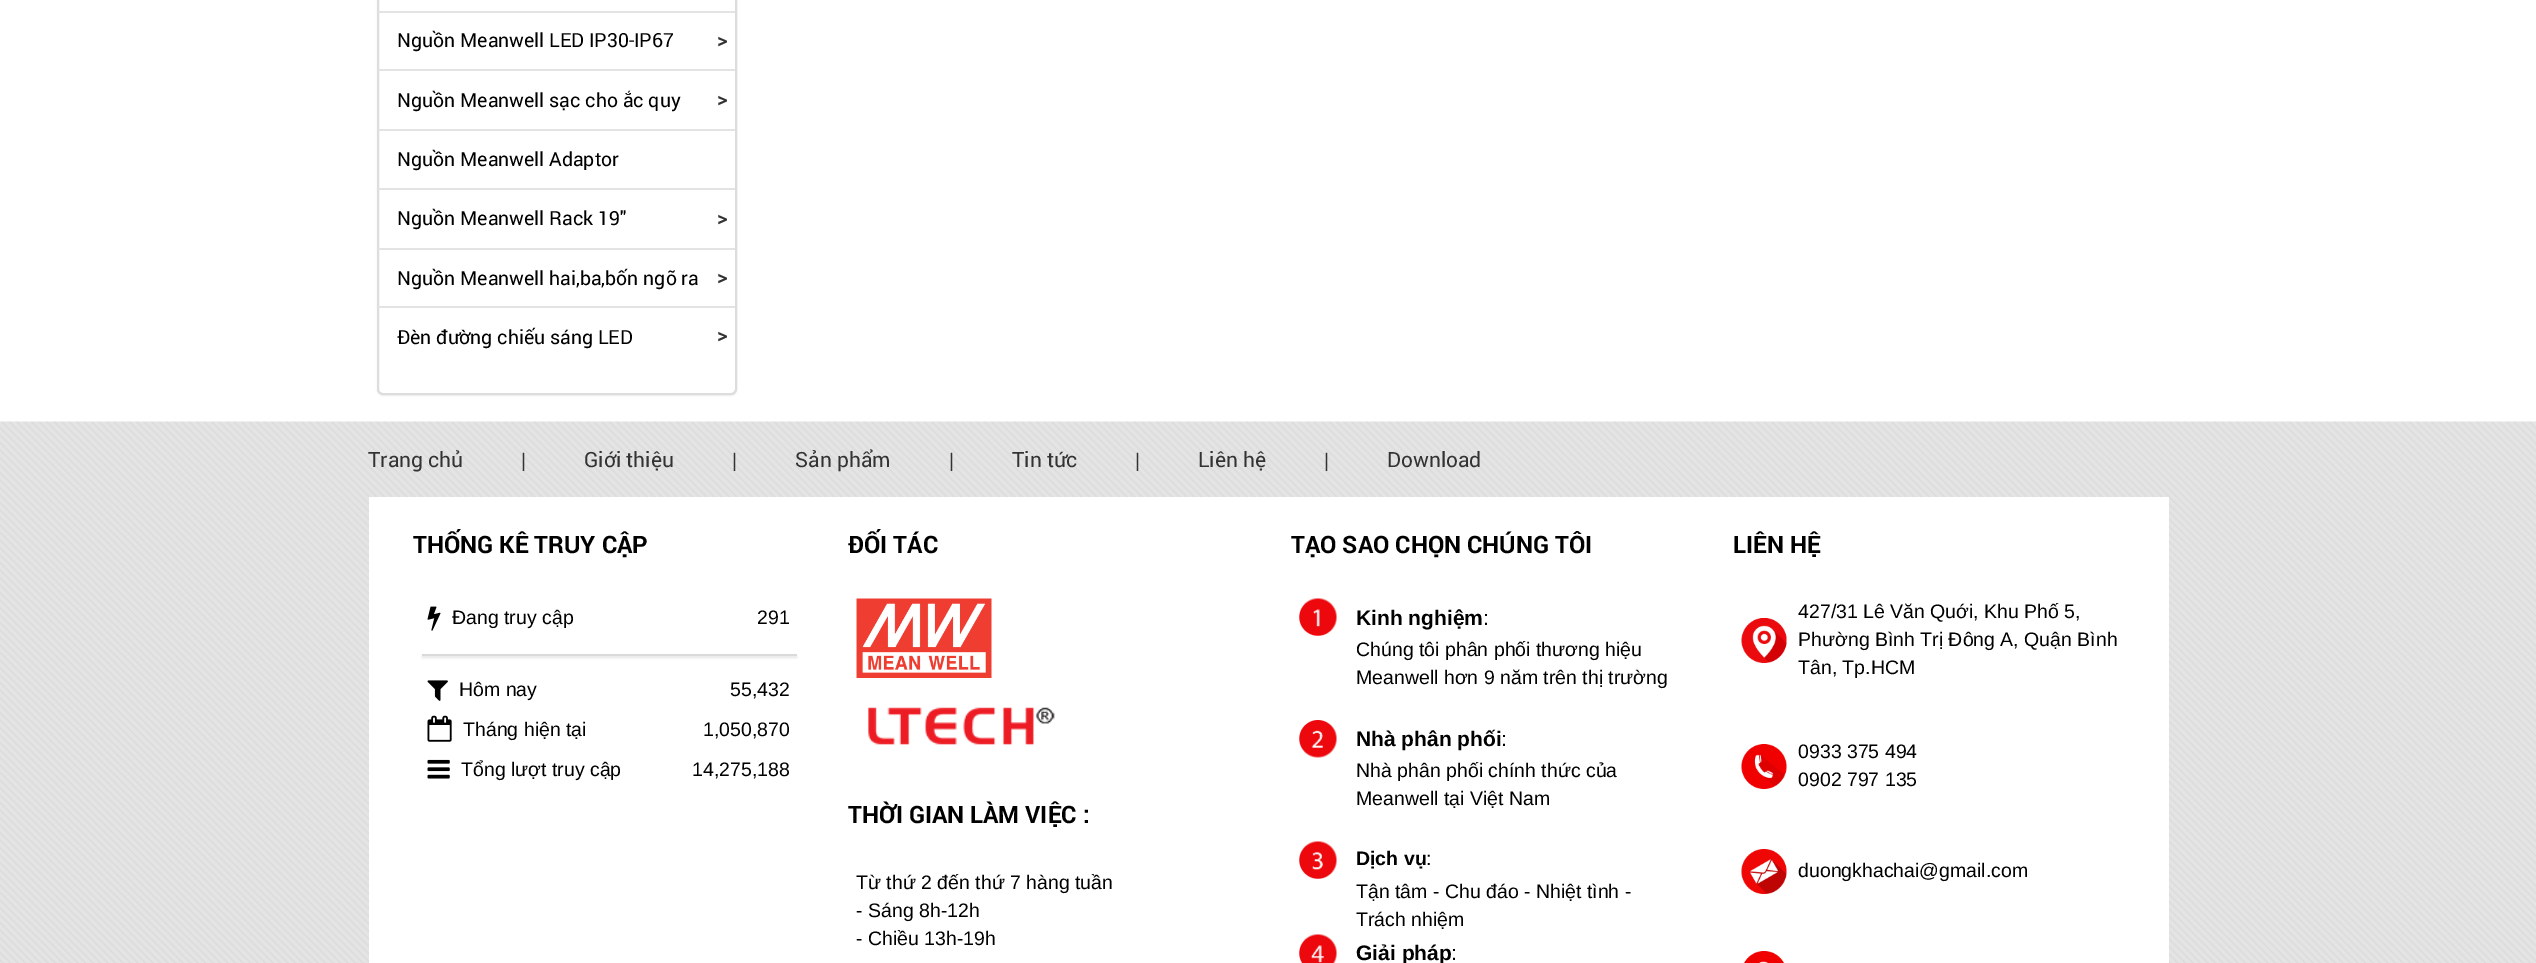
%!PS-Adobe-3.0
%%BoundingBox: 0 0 2536 963
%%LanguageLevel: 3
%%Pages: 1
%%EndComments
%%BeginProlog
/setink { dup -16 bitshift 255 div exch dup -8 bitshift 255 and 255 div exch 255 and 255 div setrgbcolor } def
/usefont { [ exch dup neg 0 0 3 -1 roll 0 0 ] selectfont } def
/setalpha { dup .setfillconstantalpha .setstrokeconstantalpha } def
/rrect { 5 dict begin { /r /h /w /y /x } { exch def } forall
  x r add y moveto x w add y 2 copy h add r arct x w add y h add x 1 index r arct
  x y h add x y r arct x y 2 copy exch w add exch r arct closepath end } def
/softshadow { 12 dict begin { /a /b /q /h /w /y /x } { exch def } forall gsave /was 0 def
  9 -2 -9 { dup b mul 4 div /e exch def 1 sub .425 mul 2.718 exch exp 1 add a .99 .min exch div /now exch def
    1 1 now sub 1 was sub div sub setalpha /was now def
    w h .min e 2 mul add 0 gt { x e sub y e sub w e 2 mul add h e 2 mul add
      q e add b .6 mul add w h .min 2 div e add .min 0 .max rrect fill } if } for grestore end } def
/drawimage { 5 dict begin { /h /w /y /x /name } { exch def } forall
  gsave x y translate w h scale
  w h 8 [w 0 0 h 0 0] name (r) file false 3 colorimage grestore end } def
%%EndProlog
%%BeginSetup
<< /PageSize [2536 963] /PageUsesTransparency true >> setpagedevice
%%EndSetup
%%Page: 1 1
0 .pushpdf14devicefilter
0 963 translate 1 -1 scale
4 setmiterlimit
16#FFFFFF setink
0 0 2536 963 rectfill
16#000000 setink
377 -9 360 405 6 1 0.05 softshadow
16#FFFFFF setink
378 -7 358 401 5 rrect gsave fill grestore
16#DDDDDD setink
2 setlinewidth
stroke
16#E3E3E3 setink
378 11 357 2 rectfill
378 69 357 2 rectfill
/Roboto-Regular 19.5 usefont
16#000000 setink
397 47 moveto (Nguồn Meanwell LED IP30-IP67) show
/Roboto-Bold 19.5 usefont
16#333333 setink
717 47 moveto (>) show
16#E3E3E3 setink
378 129 357 2 rectfill
/Roboto-Regular 19.5 usefont
16#000000 setink
397 107 moveto (Nguồn Meanwell sạc cho ắc quy) show
/Roboto-Bold 19.5 usefont
16#333333 setink
717 106 moveto (>) show
16#E3E3E3 setink
378 188 357 2 rectfill
/Roboto-Regular 19.5 usefont
16#000000 setink
397 166 moveto (Nguồn Meanwell Adaptor) show
16#E3E3E3 setink
378 248 357 2 rectfill
16#000000 setink
397 225 moveto (Nguồn Meanwell Rack 19") show
/Roboto-Bold 19.5 usefont
16#333333 setink
717 225 moveto (>) show
16#E3E3E3 setink
378 306 357 2 rectfill
/Roboto-Regular 19.5 usefont
16#000000 setink
397 285 moveto (Nguồn Meanwell hai,ba,bốn ngõ ra) show
/Roboto-Bold 19.5 usefont
16#333333 setink
717 284 moveto (>) show
/Roboto-Regular 19.5 usefont
16#000000 setink
397 344 moveto (Đèn đường chiếu sáng LED) show
/Roboto-Bold 19.5 usefont
16#333333 setink
717 342 moveto (>) show
(img1.raw) 0 421 2536 542 drawimage
/Roboto-Regular 21 usefont
368 467 moveto (Trang chủ) show
/LiberationSans-Regular 19.5 usefont
521 467 moveto (|) show
/Roboto-Regular 21 usefont
584 467 moveto (Giới thiệu) show
/LiberationSans-Regular 19.5 usefont
732 467 moveto (|) show
/Roboto-Regular 21 usefont
795 467 moveto (Sản phẩm) show
/LiberationSans-Regular 19.5 usefont
949 467 moveto (|) show
/Roboto-Regular 21 usefont
1012 467 moveto (Tin tức) show
/LiberationSans-Regular 19.5 usefont
1135 467 moveto (|) show
/Roboto-Regular 21 usefont
1198 467 moveto (Liên hệ) show
/LiberationSans-Regular 19.5 usefont
1324 467 moveto (|) show
/Roboto-Regular 21 usefont
1387 467 moveto (Download) show
16#FFFFFF setink
369 497 1800 466 rectfill
/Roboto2-Bold 24 usefont
16#000000 setink
413 553 moveto (THỐNG KÊ TRUY CẬP) show
(img2.raw) 427 606 14 25 drawimage
/LiberationSans-Regular 19.5 usefont
452 624 moveto (Đang truy cập) show
757 624 moveto (291) show
422 656 375 2 0 1 0.1 softshadow
16#DADADA setink
422 654 375 2 rectfill
(img3.raw) 427 680 21 21 drawimage
16#000000 setink
459 696 moveto (Hôm nay) show
730 696 moveto (55,432) show
(img4.raw) 427 715 25 27 drawimage
463 736 moveto (Tháng hiện tại) show
703 736 moveto (1,050,870) show
(img5.raw) 427 759 23 20 drawimage
461 776 moveto (Tổng lượt truy cập) show
692 776 moveto (14,275,188) show
/Roboto2-Bold 24 usefont
848 553 moveto (ĐỐI TÁC) show
(img6.raw) 856 598 136 80 drawimage
(img7.raw) 868 707 187 38 drawimage
848 823 moveto (THỜI GIAN LÀM VIỆC :) show
/LiberationSans-Regular 19.5 usefont
[
    [(Từ thứ 2 đến thứ 7 hàng tuần) 856 889]
    [(- Sáng 8h-12h) 856 917]
    [(- Chiều 13h-19h) 856 945]
] { aload pop moveto show } forall
/Roboto2-Bold 24 usefont
1291 553 moveto (TẠO SAO CHỌN CHÚNG TÔI) show
(img8.raw) 1299 598 38 38 drawimage
/LiberationSans-Bold 21 usefont
1356 625 moveto (Kinh nghiệm) show
/LiberationSans-Regular 21 usefont
1483 625 moveto (:) show
/LiberationSans-Regular 19.5 usefont
1356 656 moveto (Chúng tôi phân phối thương hiệu) show
1356 684 moveto (Meanwell hơn 9 năm trên thị trường) show
(img9.raw) 1299 720 38 38 drawimage
/LiberationSans-Bold 21 usefont
1356 746 moveto (Nhà phân phối) show
/LiberationSans-Regular 21 usefont
1501 746 moveto (:) show
/LiberationSans-Regular 19.5 usefont
1356 777 moveto (Nhà phân phối chính thức của) show
1356 805 moveto (Meanwell tại Việt Nam) show
(img10.raw) 1299 841 38 38 drawimage
/LiberationSans-Bold 19.5 usefont
1356 865 moveto (Dịch vụ) show
/LiberationSans-Regular 19.5 usefont
[
    [(:) 1426 865]
    [(Tận tâm - Chu đáo - Nhiệt tình -) 1356 898]
    [(Trách nhiệm) 1356 926]
] { aload pop moveto show } forall
(img11.raw) 1299 934 38 29 drawimage
/LiberationSans-Bold 21 usefont
1356 960 moveto (Giải pháp) show
/LiberationSans-Regular 21 usefont
1451 960 moveto (:) show
/Roboto2-Bold 24 usefont
1733 553 moveto (LIÊN HỆ) show
(img12.raw) 1741 618 46 45 drawimage
/LiberationSans-Regular 19.5 usefont
[
    [(427/31 Lê Văn Quới, Khu Phố 5,) 1798 618]
    [(Phường Bình Trị Đông A, Quận Bình) 1798 646]
    [(Tân, Tp.HCM) 1798 674]
] { aload pop moveto show } forall
(img13.raw) 1741 744 46 45 drawimage
1798 758 moveto (0933 375 494) show
1798 786 moveto (0902 797 135) show
(img14.raw) 1741 849 46 45 drawimage
1798 877 moveto (duongkhachai@gmail.com) show
(img15.raw) 1743 951 42 12 drawimage
.poppdf14devicefilter showpage
%%EOF
